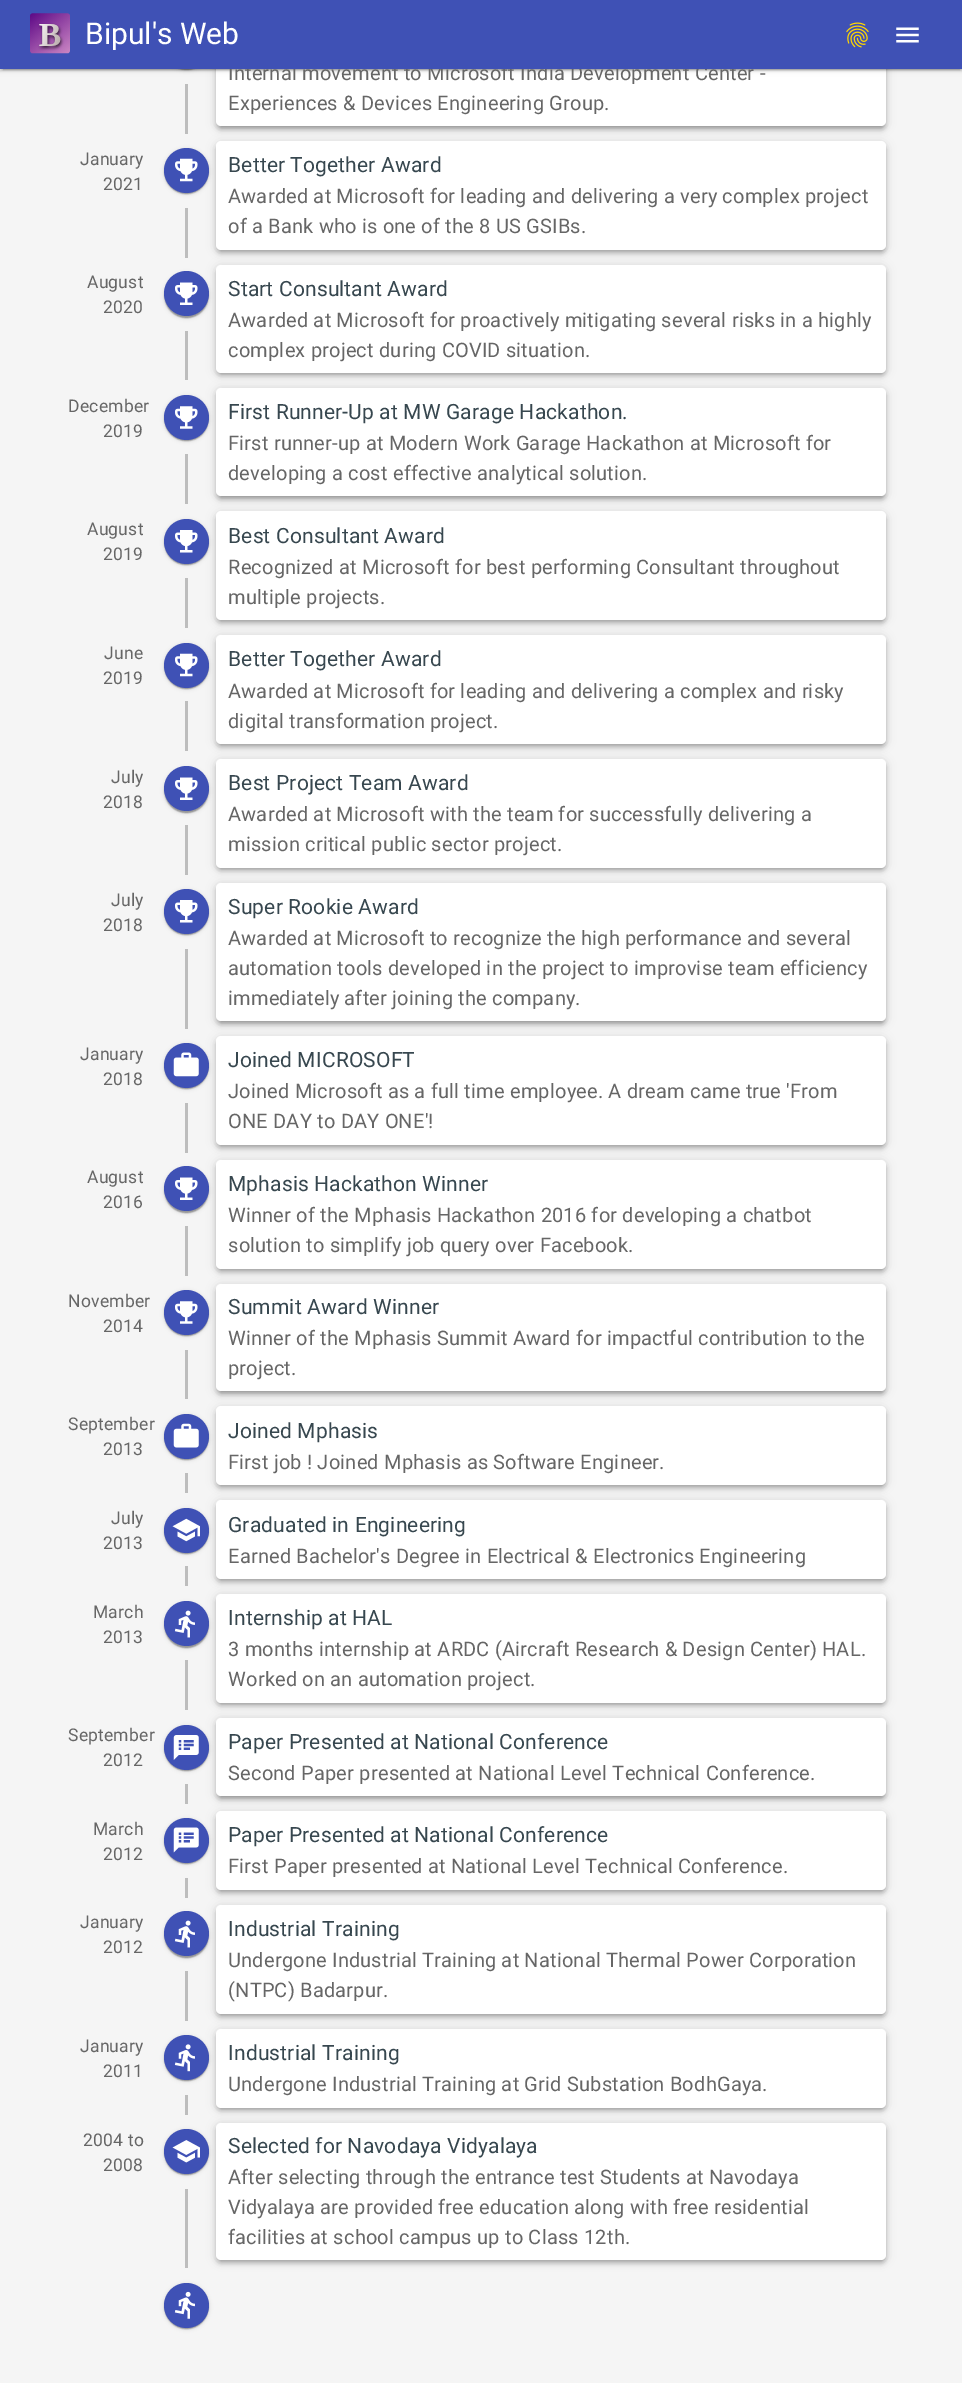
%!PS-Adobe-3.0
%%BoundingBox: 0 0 962 2383
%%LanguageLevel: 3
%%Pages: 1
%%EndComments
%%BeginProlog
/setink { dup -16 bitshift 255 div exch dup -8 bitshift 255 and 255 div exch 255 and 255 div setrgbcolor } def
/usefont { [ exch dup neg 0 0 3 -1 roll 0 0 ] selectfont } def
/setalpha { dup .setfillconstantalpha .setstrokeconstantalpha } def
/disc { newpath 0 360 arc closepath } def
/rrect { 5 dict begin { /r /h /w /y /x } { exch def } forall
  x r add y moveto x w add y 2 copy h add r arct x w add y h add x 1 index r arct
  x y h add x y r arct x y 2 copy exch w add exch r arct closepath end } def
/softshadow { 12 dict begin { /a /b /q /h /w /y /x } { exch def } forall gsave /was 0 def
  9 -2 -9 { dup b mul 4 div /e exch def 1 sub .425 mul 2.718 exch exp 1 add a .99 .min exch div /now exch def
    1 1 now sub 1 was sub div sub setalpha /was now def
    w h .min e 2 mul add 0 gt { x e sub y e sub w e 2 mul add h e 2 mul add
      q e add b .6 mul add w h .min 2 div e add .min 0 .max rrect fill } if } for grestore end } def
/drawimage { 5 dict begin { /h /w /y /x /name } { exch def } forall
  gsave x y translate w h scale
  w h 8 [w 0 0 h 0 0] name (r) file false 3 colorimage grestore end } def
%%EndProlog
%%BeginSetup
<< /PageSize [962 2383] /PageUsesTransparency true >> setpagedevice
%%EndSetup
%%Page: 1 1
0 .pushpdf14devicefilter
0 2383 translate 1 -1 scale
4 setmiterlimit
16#F5F5F5 setink
0 0 962 2383 rectfill
16#000000 setink
216 19 670 109 5 5 0.12 softshadow
216 21 670 109 5 2.5 0.14 softshadow
219 24 665 104 2.5 2 0.2 softshadow
16#FFFFFF setink
216 18 670 108 5 rrect fill
16#000000 setink
0 1 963 69 0 3 0.12 softshadow
3 6 957 64 0 0.5 0.2 softshadow
0 3 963 68 0 1 0.14 softshadow
164 25 45 45 22.5 2 0.12 softshadow
164 25 45 45 22.5 0.5 0.14 softshadow
165 28 43 42 21 0.5 0.2 softshadow
/Roboto-Regular 20 usefont
16#666666 setink
228 80 moveto 0.2 0 (Internal movement to Microsoft India Development Center -) ashow
16#3F51B5 setink
0 0 962 69 rectfill
(img1.raw) 30 13 40 41 drawimage
/Roboto-Regular 30 usefont
16#FFFFFF setink
85 44 moveto (Bipul's Web) show
(img2.raw) 846 22 23 26 drawimage
(img3.raw) 896 27 23 16 drawimage
16#BDBDBD setink
185 84 3 50 rectfill
/Roboto-Regular 20 usefont
16#666666 setink
228 110 moveto 0.2 0 (Experiences & Devices Engineering Group.) ashow
/Roboto-Regular 17.5 usefont
80 165 moveto 0.2 0 (January) ashow
103 190 moveto 0.2 0 (2021) ashow
16#000000 setink
164 149 45 45 22.5 2 0.12 softshadow
164 149 45 45 22.5 0.5 0.14 softshadow
165 151 43 43 21.5 0.5 0.2 softshadow
16#3F51B5 setink
186.5 170.5 22.5 disc fill
(img4.raw) 175 158 23 24 drawimage
16#BDBDBD setink
185 208 3 50 rectfill
16#000000 setink
216 143 670 108 5 5 0.12 softshadow
216 145 670 109 5 2.5 0.14 softshadow
219 148 665 103 2.5 2 0.2 softshadow
16#FFFFFF setink
216 141 670 109 5 rrect fill
/Roboto-Regular 21 usefont
16#37474F setink
228 172 moveto 0.15 0 (Better Together Award) ashow
/Roboto-Regular 20 usefont
16#666666 setink
228 203 moveto 0.2 0 (Awarded at Microsoft for leading and delivering a very complex project) ashow
228 233 moveto 0.2 0 (of a Bank who is one of the 8 US GSIBs.) ashow
/Roboto-Regular 17.5 usefont
87 288 moveto 0.2 0 (August) ashow
103 313 moveto 0.2 0 (2020) ashow
16#000000 setink
164 273 45 45 22.5 2 0.12 softshadow
164 273 45 45 22.5 0.5 0.14 softshadow
165 275 43 43 21.5 0.5 0.2 softshadow
16#3F51B5 setink
186.5 293.5 22.5 disc fill
(img5.raw) 175 282 23 23 drawimage
16#BDBDBD setink
185 331 3 49 rectfill
16#000000 setink
216 266 670 108 5 5 0.12 softshadow
216 269 670 107 5 2.5 0.14 softshadow
219 271 665 103 2.5 2 0.2 softshadow
16#FFFFFF setink
216 265 670 108 5 rrect fill
/Roboto-Regular 21 usefont
16#37474F setink
228 296 moveto 0.15 0 (Start Consultant Award) ashow
/Roboto-Regular 20 usefont
16#666666 setink
228 327 moveto 0.2 0 (Awarded at Microsoft for proactively mitigating several risks in a highly) ashow
228 357 moveto 0.2 0 (complex project during COVID situation.) ashow
/Roboto-Regular 17.5 usefont
68 412 moveto 0.2 0 (December) ashow
103 437 moveto 0.2 0 (2019) ashow
16#000000 setink
164 396 45 45 22.5 2 0.12 softshadow
164 396 45 45 22.5 0.5 0.14 softshadow
165 399 43 42 21 0.5 0.2 softshadow
16#3F51B5 setink
186.5 417.5 22.5 disc fill
(img6.raw) 175 406 23 23 drawimage
16#BDBDBD setink
185 454 3 50 rectfill
16#000000 setink
216 389 670 109 5 5 0.12 softshadow
216 391 670 109 5 2.5 0.14 softshadow
219 394 665 104 2.5 2 0.2 softshadow
16#FFFFFF setink
216 388 670 108 5 rrect fill
/Roboto-Regular 21 usefont
16#37474F setink
228 419 moveto 0.15 0 (First Runner-Up at MW Garage Hackathon.) ashow
/Roboto-Regular 20 usefont
16#666666 setink
228 450 moveto 0.2 0 (First runner-up at Modern Work Garage Hackathon at Microsoft for) ashow
228 480 moveto 0.2 0 (developing a cost effective analytical solution.) ashow
/Roboto-Regular 17.5 usefont
87 535 moveto 0.2 0 (August) ashow
103 560 moveto 0.2 0 (2019) ashow
16#000000 setink
164 520 45 45 22.5 2 0.12 softshadow
164 520 45 45 22.5 0.5 0.14 softshadow
165 523 43 42 21 0.5 0.2 softshadow
16#3F51B5 setink
186.5 541.5 22.5 disc fill
(img7.raw) 175 530 23 23 drawimage
16#BDBDBD setink
185 578 3 50 rectfill
16#000000 setink
216 513 670 108 5 5 0.12 softshadow
216 515 670 109 5 2.5 0.14 softshadow
219 518 665 103 2.5 2 0.2 softshadow
16#FFFFFF setink
216 511 670 109 5 rrect fill
/Roboto-Regular 21 usefont
16#37474F setink
228 543 moveto 0.15 0 (Best Consultant Award) ashow
/Roboto-Regular 20 usefont
16#666666 setink
228 574 moveto 0.2 0 (Recognized at Microsoft for best performing Consultant throughout) ashow
228 604 moveto 0.2 0 (multiple projects.) ashow
/Roboto-Regular 17.5 usefont
104 659 moveto 0.2 0 (June) ashow
103 684 moveto 0.2 0 (2019) ashow
16#000000 setink
164 644 45 45 22.5 2 0.12 softshadow
164 644 45 45 22.5 0.5 0.14 softshadow
165 646 43 43 21.5 0.5 0.2 softshadow
16#3F51B5 setink
186.5 665.5 22.5 disc fill
(img4.raw) 175 653 23 24 drawimage
16#BDBDBD setink
185 701 3 50 rectfill
16#000000 setink
216 636 670 109 5 5 0.12 softshadow
216 639 670 109 5 2.5 0.14 softshadow
219 641 665 104 2.5 2 0.2 softshadow
16#FFFFFF setink
216 635 670 109 5 rrect fill
/Roboto-Regular 21 usefont
16#37474F setink
228 666 moveto 0.15 0 (Better Together Award) ashow
/Roboto-Regular 20 usefont
16#666666 setink
228 698 moveto 0.2 0 (Awarded at Microsoft for leading and delivering a complex and risky) ashow
228 728 moveto 0.2 0 (digital transformation project.) ashow
/Roboto-Regular 17.5 usefont
111 783 moveto 0.2 0 (July) ashow
103 808 moveto 0.2 0 (2018) ashow
16#000000 setink
164 768 45 45 22.5 2 0.12 softshadow
164 768 45 45 22.5 0.5 0.14 softshadow
165 770 43 43 21.5 0.5 0.2 softshadow
16#3F51B5 setink
186.5 788.5 22.5 disc fill
(img5.raw) 175 777 23 23 drawimage
16#BDBDBD setink
185 825 3 50 rectfill
16#000000 setink
216 760 670 109 5 5 0.12 softshadow
216 763 670 108 5 2.5 0.14 softshadow
219 765 665 104 2.5 2 0.2 softshadow
16#FFFFFF setink
216 759 670 109 5 rrect fill
/Roboto-Regular 21 usefont
16#37474F setink
228 790 moveto 0.15 0 (Best Project Team Award) ashow
/Roboto-Regular 20 usefont
16#666666 setink
228 821 moveto 0.2 0 (Awarded at Microsoft with the team for successfully delivering a) ashow
228 851 moveto 0.2 0 (mission critical public sector project.) ashow
/Roboto-Regular 17.5 usefont
111 906 moveto 0.2 0 (July) ashow
103 931 moveto 0.2 0 (2018) ashow
16#000000 setink
164 890 45 45 22.5 2 0.12 softshadow
164 890 45 45 22.5 0.5 0.14 softshadow
165 893 43 42 21 0.5 0.2 softshadow
16#3F51B5 setink
186.5 911.5 22.5 disc fill
(img7.raw) 175 900 23 23 drawimage
16#BDBDBD setink
185 949 3 80 rectfill
16#000000 setink
216 884 670 139 5 5 0.12 softshadow
216 886 670 139 5 2.5 0.14 softshadow
219 889 665 134 2.5 2 0.2 softshadow
16#FFFFFF setink
216 883 670 138 5 rrect fill
/Roboto-Regular 21 usefont
16#37474F setink
228 914 moveto 0.15 0 (Super Rookie Award) ashow
/Roboto-Regular 20 usefont
16#666666 setink
228 945 moveto 0.2 0 (Awarded at Microsoft to recognize the high performance and several) ashow
228 975 moveto 0.2 0 (automation tools developed in the project to improvise team efficiency) ashow
228 1005 moveto 0.2 0 (immediately after joining the company.) ashow
/Roboto-Regular 17.5 usefont
80 1060 moveto 0.2 0 (January) ashow
103 1085 moveto 0.2 0 (2018) ashow
16#000000 setink
164 1044 45 45 22.5 2 0.12 softshadow
164 1044 45 45 22.5 0.5 0.14 softshadow
165 1046 43 43 21.5 0.5 0.2 softshadow
16#3F51B5 setink
186.5 1065.5 22.5 disc fill
(img8.raw) 173 1052 26 25 drawimage
16#BDBDBD setink
185 1103 3 50 rectfill
16#000000 setink
216 1038 670 108 5 5 0.12 softshadow
216 1040 670 109 5 2.5 0.14 softshadow
219 1043 665 103 2.5 2 0.2 softshadow
16#FFFFFF setink
216 1036 670 109 5 rrect fill
/Roboto-Regular 21 usefont
16#37474F setink
228 1067 moveto 0.15 0 (Joined MICROSOFT) ashow
/Roboto-Regular 20 usefont
16#666666 setink
228 1098 moveto 0.2 0 (Joined Microsoft as a full time employee. A dream came true 'From) ashow
228 1128 moveto 0.2 0 (ONE DAY to DAY ONE'!) ashow
/Roboto-Regular 17.5 usefont
87 1183 moveto 0.2 0 (August) ashow
103 1208 moveto 0.2 0 (2016) ashow
16#000000 setink
164 1168 45 45 22.5 2 0.12 softshadow
164 1168 45 45 22.5 0.5 0.14 softshadow
165 1170 43 43 21.5 0.5 0.2 softshadow
16#3F51B5 setink
186.5 1188.5 22.5 disc fill
(img5.raw) 175 1177 23 23 drawimage
16#BDBDBD setink
185 1226 3 50 rectfill
16#000000 setink
216 1161 670 109 5 5 0.12 softshadow
216 1164 670 109 5 2.5 0.14 softshadow
219 1166 665 104 2.5 2 0.2 softshadow
16#FFFFFF setink
216 1160 670 109 5 rrect fill
/Roboto-Regular 21 usefont
16#37474F setink
228 1191 moveto 0.15 0 (Mphasis Hackathon Winner) ashow
/Roboto-Regular 20 usefont
16#666666 setink
228 1222 moveto 0.2 0 (Winner of the Mphasis Hackathon 2016 for developing a chatbot) ashow
228 1252 moveto 0.2 0 (solution to simplify job query over Facebook.) ashow
/Roboto-Regular 17.5 usefont
68 1307 moveto 0.2 0 (November) ashow
103 1332 moveto 0.2 0 (2014) ashow
16#000000 setink
164 1291 45 45 22.5 2 0.12 softshadow
164 1291 45 45 22.5 0.5 0.14 softshadow
165 1294 43 42 21 0.5 0.2 softshadow
16#3F51B5 setink
186.5 1312.5 22.5 disc fill
(img6.raw) 175 1301 23 23 drawimage
16#BDBDBD setink
185 1350 3 49 rectfill
16#000000 setink
216 1285 670 108 5 5 0.12 softshadow
216 1288 670 107 5 2.5 0.14 softshadow
219 1290 665 103 2.5 2 0.2 softshadow
16#FFFFFF setink
216 1284 670 107 5 rrect fill
/Roboto-Regular 21 usefont
16#37474F setink
228 1314 moveto 0.15 0 (Summit Award Winner) ashow
/Roboto-Regular 20 usefont
16#666666 setink
228 1345 moveto 0.2 0 (Winner of the Mphasis Summit Award for impactful contribution to the) ashow
228 1375 moveto 0.2 0 (project.) ashow
/Roboto-Regular 17.5 usefont
68 1430 moveto 0.2 0 (September) ashow
103 1455 moveto 0.2 0 (2013) ashow
16#000000 setink
164 1415 45 45 22.5 2 0.12 softshadow
164 1415 45 45 22.5 0.5 0.14 softshadow
165 1418 43 42 21 0.5 0.2 softshadow
16#3F51B5 setink
186.5 1436.5 22.5 disc fill
(img9.raw) 173 1423 26 25 drawimage
16#BDBDBD setink
185 1473 3 20 rectfill
16#000000 setink
216 1408 670 78 5 5 0.12 softshadow
216 1410 670 79 5 2.5 0.14 softshadow
219 1413 665 73 2.5 2 0.2 softshadow
16#FFFFFF setink
216 1406 670 79 5 rrect fill
/Roboto-Regular 21 usefont
16#37474F setink
228 1438 moveto 0.15 0 (Joined Mphasis) ashow
/Roboto-Regular 20 usefont
16#666666 setink
228 1469 moveto 0.2 0 (First job ! Joined Mphasis as Software Engineer.) ashow
/Roboto-Regular 17.5 usefont
111 1524 moveto 0.2 0 (July) ashow
103 1549 moveto 0.2 0 (2013) ashow
16#000000 setink
164 1509 45 45 22.5 2 0.12 softshadow
164 1509 45 45 22.5 0.5 0.14 softshadow
165 1511 43 43 21.5 0.5 0.2 softshadow
16#3F51B5 setink
186.5 1530.5 22.5 disc fill
(img10.raw) 172 1518 28 24 drawimage
16#BDBDBD setink
185 1566 3 20 rectfill
16#000000 setink
216 1501 670 79 5 5 0.12 softshadow
216 1504 670 79 5 2.5 0.14 softshadow
219 1506 665 74 2.5 2 0.2 softshadow
16#FFFFFF setink
216 1500 670 79 5 rrect fill
/Roboto-Regular 21 usefont
16#37474F setink
228 1532 moveto 0.15 0 (Graduated in Engineering) ashow
/Roboto-Regular 20 usefont
16#666666 setink
228 1563 moveto 0.2 0 (Earned Bachelor's Degree in Electrical & Electronics Engineering) ashow
/Roboto-Regular 17.5 usefont
93 1618 moveto 0.2 0 (March) ashow
103 1643 moveto 0.2 0 (2013) ashow
16#000000 setink
164 1603 45 45 22.5 2 0.12 softshadow
164 1603 45 45 22.5 0.5 0.14 softshadow
165 1605 43 43 21.5 0.5 0.2 softshadow
16#3F51B5 setink
186.5 1623.5 22.5 disc fill
(img11.raw) 174 1610 21 28 drawimage
16#BDBDBD setink
185 1660 3 50 rectfill
16#000000 setink
216 1595 670 109 5 5 0.12 softshadow
216 1598 670 108 5 2.5 0.14 softshadow
219 1600 665 104 2.5 2 0.2 softshadow
16#FFFFFF setink
216 1594 670 109 5 rrect fill
/Roboto-Regular 21 usefont
16#37474F setink
228 1625 moveto 0.15 0 (Internship at HAL) ashow
/Roboto-Regular 20 usefont
16#666666 setink
228 1656 moveto 0.2 0 (3 months internship at ARDC \(Aircraft Research & Design Center\) HAL.) ashow
228 1686 moveto 0.2 0 (Worked on an automation project.) ashow
/Roboto-Regular 17.5 usefont
68 1741 moveto 0.2 0 (September) ashow
103 1766 moveto 0.2 0 (2012) ashow
16#000000 setink
164 1726 45 45 22.5 2 0.12 softshadow
164 1726 45 45 22.5 0.5 0.14 softshadow
165 1729 43 42 21 0.5 0.2 softshadow
16#3F51B5 setink
186.5 1747.5 22.5 disc fill
(img12.raw) 173 1735 26 25 drawimage
16#BDBDBD setink
185 1784 3 20 rectfill
16#000000 setink
216 1719 670 79 5 5 0.12 softshadow
216 1721 670 79 5 2.5 0.14 softshadow
219 1724 665 74 2.5 2 0.2 softshadow
16#FFFFFF setink
216 1718 670 78 5 rrect fill
/Roboto-Regular 21 usefont
16#37474F setink
228 1749 moveto 0.15 0 (Paper Presented at National Conference) ashow
/Roboto-Regular 20 usefont
16#666666 setink
228 1780 moveto 0.2 0 (Second Paper presented at National Level Technical Conference.) ashow
/Roboto-Regular 17.5 usefont
93 1835 moveto 0.2 0 (March) ashow
103 1860 moveto 0.2 0 (2012) ashow
16#000000 setink
164 1819 45 45 22.5 2 0.12 softshadow
164 1819 45 45 22.5 0.5 0.14 softshadow
165 1821 43 43 21.5 0.5 0.2 softshadow
16#3F51B5 setink
186.5 1840.5 22.5 disc fill
(img13.raw) 173 1827 26 26 drawimage
16#BDBDBD setink
185 1878 3 20 rectfill
16#000000 setink
216 1813 670 78 5 5 0.12 softshadow
216 1815 670 79 5 2.5 0.14 softshadow
219 1818 665 73 2.5 2 0.2 softshadow
16#FFFFFF setink
216 1811 670 79 5 rrect fill
/Roboto-Regular 21 usefont
16#37474F setink
228 1842 moveto 0.15 0 (Paper Presented at National Conference) ashow
/Roboto-Regular 20 usefont
16#666666 setink
228 1873 moveto 0.2 0 (First Paper presented at National Level Technical Conference.) ashow
/Roboto-Regular 17.5 usefont
80 1928 moveto 0.2 0 (January) ashow
103 1953 moveto 0.2 0 (2012) ashow
16#000000 setink
164 1913 45 45 22.5 2 0.12 softshadow
164 1913 45 45 22.5 0.5 0.14 softshadow
165 1915 43 43 21.5 0.5 0.2 softshadow
16#3F51B5 setink
186.5 1933.5 22.5 disc fill
(img11.raw) 174 1920 21 28 drawimage
16#BDBDBD setink
185 1971 3 50 rectfill
16#000000 setink
216 1906 670 109 5 5 0.12 softshadow
216 1909 670 109 5 2.5 0.14 softshadow
219 1911 665 104 2.5 2 0.2 softshadow
16#FFFFFF setink
216 1905 670 109 5 rrect fill
/Roboto-Regular 21 usefont
16#37474F setink
228 1936 moveto 0.15 0 (Industrial Training) ashow
/Roboto-Regular 20 usefont
16#666666 setink
228 1967 moveto 0.2 0 (Undergone Industrial Training at National Thermal Power Corporation) ashow
228 1997 moveto 0.2 0 (\(NTPC\) Badarpur.) ashow
/Roboto-Regular 17.5 usefont
80 2052 moveto 0.2 0 (January) ashow
103 2077 moveto 0.2 0 (2011) ashow
16#000000 setink
164 2036 45 45 22.5 2 0.12 softshadow
164 2036 45 45 22.5 0.5 0.14 softshadow
165 2039 43 42 21 0.5 0.2 softshadow
16#3F51B5 setink
186.5 2057.5 22.5 disc fill
(img14.raw) 174 2044 21 28 drawimage
16#BDBDBD setink
185 2095 3 20 rectfill
16#000000 setink
216 2030 670 79 5 5 0.12 softshadow
216 2033 670 78 5 2.5 0.14 softshadow
219 2035 665 74 2.5 2 0.2 softshadow
16#FFFFFF setink
216 2029 670 79 5 rrect fill
/Roboto-Regular 21 usefont
16#37474F setink
228 2060 moveto 0.15 0 (Industrial Training) ashow
/Roboto-Regular 20 usefont
16#666666 setink
228 2091 moveto 0.2 0 (Undergone Industrial Training at Grid Substation BodhGaya.) ashow
/Roboto-Regular 17.5 usefont
83 2146 moveto 0.2 0 (2004 to) ashow
103 2171 moveto 0.2 0 (2008) ashow
16#000000 setink
164 2130 45 45 22.5 2 0.12 softshadow
164 2130 45 45 22.5 0.5 0.14 softshadow
165 2133 43 42 21 0.5 0.2 softshadow
16#3F51B5 setink
186.5 2151.5 22.5 disc fill
(img15.raw) 172 2140 28 23 drawimage
16#BDBDBD setink
185 2189 3 79 rectfill
16#000000 setink
216 2124 670 137 5 5 0.12 softshadow
216 2126 670 138 5 2.5 0.14 softshadow
219 2129 665 132 2.5 2 0.2 softshadow
16#FFFFFF setink
216 2123 670 137 5 rrect fill
/Roboto-Regular 21 usefont
16#37474F setink
228 2153 moveto 0.15 0 (Selected for Navodaya Vidyalaya) ashow
/Roboto-Regular 20 usefont
16#666666 setink
228 2184 moveto 0.2 0 (After selecting through the entrance test Students at Navodaya) ashow
228 2214 moveto 0.2 0 (Vidyalaya are provided free education along with free residential) ashow
228 2244 moveto 0.2 0 (facilities at school campus up to Class 12th.) ashow
16#000000 setink
164 2284 45 45 22.5 2 0.12 softshadow
164 2284 45 45 22.5 0.5 0.14 softshadow
165 2286 43 43 21.5 0.5 0.2 softshadow
16#3F51B5 setink
186.5 2305.5 22.5 disc fill
(img16.raw) 174 2291 21 28 drawimage
.poppdf14devicefilter showpage
%%EOF
